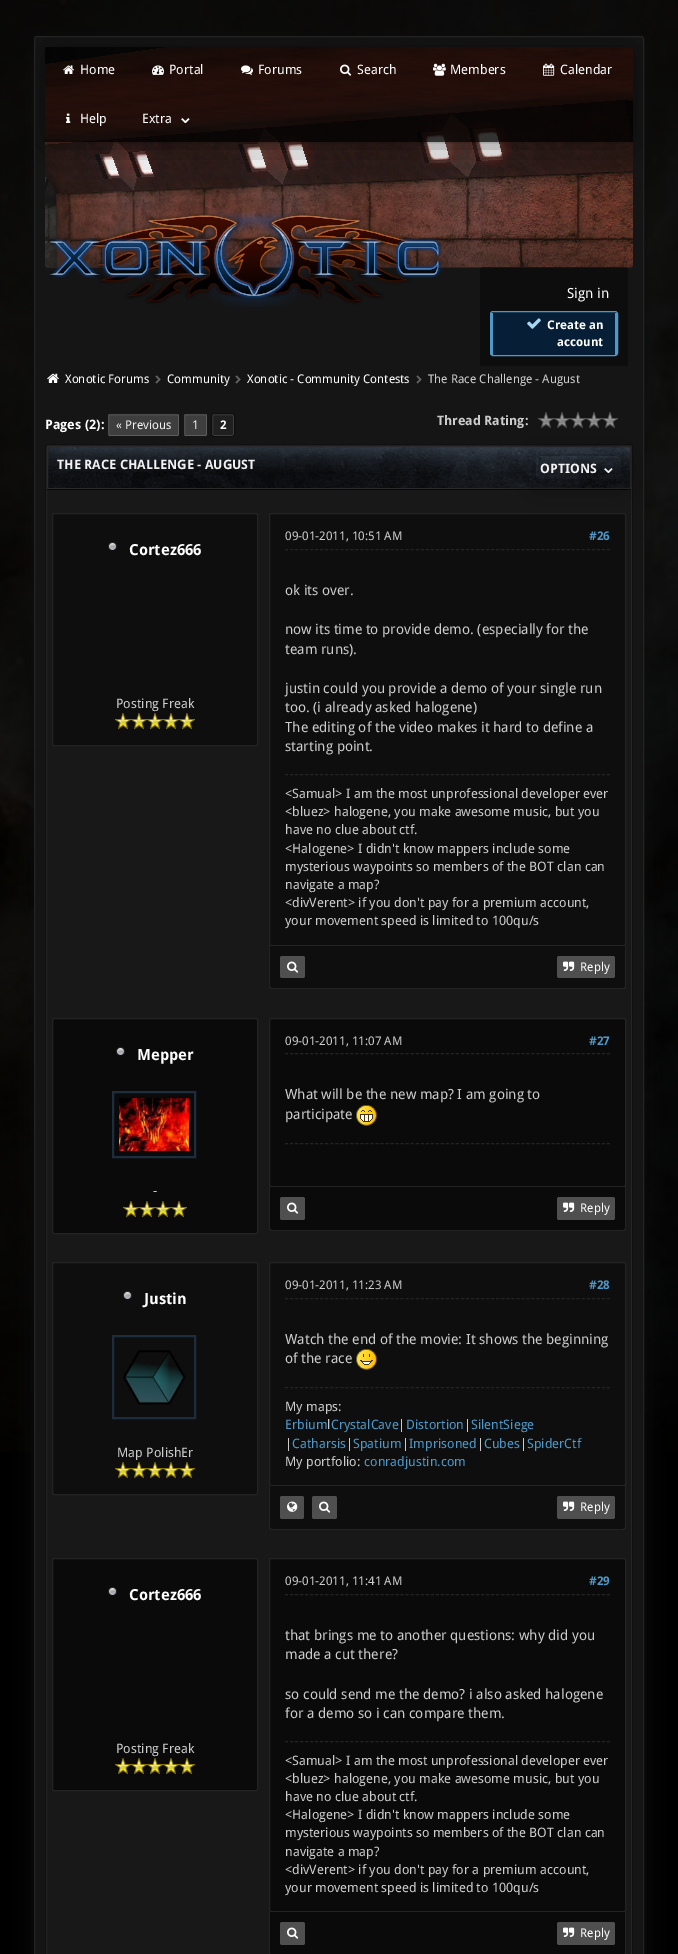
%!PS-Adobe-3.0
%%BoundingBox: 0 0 678 1954
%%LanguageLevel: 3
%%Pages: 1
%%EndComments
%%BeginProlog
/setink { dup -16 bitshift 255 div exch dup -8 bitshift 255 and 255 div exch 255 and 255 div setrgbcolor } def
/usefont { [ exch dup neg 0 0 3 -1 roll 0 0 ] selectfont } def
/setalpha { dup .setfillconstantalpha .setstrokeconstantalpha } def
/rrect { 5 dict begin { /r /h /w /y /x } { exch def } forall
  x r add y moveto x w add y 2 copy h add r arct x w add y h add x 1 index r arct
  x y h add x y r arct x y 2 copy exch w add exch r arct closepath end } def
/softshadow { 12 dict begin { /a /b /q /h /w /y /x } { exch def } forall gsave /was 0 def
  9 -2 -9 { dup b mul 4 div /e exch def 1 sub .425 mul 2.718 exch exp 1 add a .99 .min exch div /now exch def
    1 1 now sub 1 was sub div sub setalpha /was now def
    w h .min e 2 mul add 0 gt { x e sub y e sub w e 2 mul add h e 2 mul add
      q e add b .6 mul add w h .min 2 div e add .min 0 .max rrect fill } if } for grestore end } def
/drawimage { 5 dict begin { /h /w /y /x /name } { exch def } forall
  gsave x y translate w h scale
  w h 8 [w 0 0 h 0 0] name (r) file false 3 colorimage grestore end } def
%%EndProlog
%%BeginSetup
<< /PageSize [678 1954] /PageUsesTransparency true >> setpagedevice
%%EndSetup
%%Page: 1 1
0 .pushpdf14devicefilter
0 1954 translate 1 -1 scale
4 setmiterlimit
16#000000 setink
0 0 678 1954 rectfill
(img1.raw) 0 0 678 1452 drawimage
16#0D0D0D setink
34 41 610 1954 3 12.5 1 softshadow
16#151515 setink
35 37 608 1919 2 rrect fill
16#232323 setink
34.5 36.5 609 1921 2.5 rrect stroke
(img9.raw) 45 47 588 221 drawimage
0.8 setalpha
16#000000 setink
45 47 588 95 rectfill
gsave
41 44 moveto 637 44 lineto 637 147 lineto 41 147 lineto closepath 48 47 moveto 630 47 lineto 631.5 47 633 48.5 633 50 curveto 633 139 lineto 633 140.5 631.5 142 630 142 curveto 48 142 lineto 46.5 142 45 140.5 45 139 curveto 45 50 lineto 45 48.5 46.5 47 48 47 curveto closepath eoclip newpath
1 setalpha
45 48 588 95 3 1 0.2 softshadow
grestore
gsave
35 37 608 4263 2 rrect clip newpath
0 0 moveto 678 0 lineto 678 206 lineto 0 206 lineto closepath 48 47 moveto 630 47 lineto 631.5 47 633 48.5 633 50 curveto 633 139 lineto 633 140.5 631.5 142 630 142 curveto 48 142 lineto 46.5 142 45 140.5 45 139 curveto 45 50 lineto 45 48.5 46.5 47 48 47 curveto closepath eoclip newpath
1 setalpha
45 50 588 95 3 20 0.5 softshadow
grestore
1 setalpha
(img2.raw) 63 65 11 9 drawimage
/DroidSans-Regular 13 usefont
16#FFFFFF setink
80 74 moveto (Home) show
(img3.raw) 152 65 12 10 drawimage
169 74 moveto (Portal) show
(img4.raw) 241 65 12 10 drawimage
258 74 moveto (Forums) show
(img5.raw) 340 64 12 12 drawimage
357 74 moveto (Search) show
(img6.raw) 433 63 13 13 drawimage
450 74 moveto (Members) show
(img7.raw) 543 63 12 13 drawimage
560 74 moveto (Calendar) show
(img8.raw) 66 113 5 10 drawimage
80 123 moveto (Help) show
142 123 moveto (Extra) show
/DejaVuSans-Regular 20 usefont
177 123 moveto (⌄) show
16#262626 setink
47 267 584 1 rectfill
(img10.raw) 50 211 392 96 drawimage
0.4 setalpha
16#000000 setink
483 267 moveto 625 267 lineto 626.5 267 628 268.5 628 270 curveto 628 366 lineto 480 366 lineto 480 270 lineto 480 268.5 481.5 267 483 267 curveto closepath fill
/DroidSans-Regular 14 usefont
1 setalpha
16#FFFFFF setink
567 298 moveto (Sign in) show
16#071F36 setink
493 312 122 43 rectfill
16#4D99C9 setink
490.5 311.5 127 44 2.5 rrect stroke
615 313 2 42 rectfill
491 313 2 42 rectfill
(img11.raw) 527 318 14 11 drawimage
/DroidSans-Bold 12 usefont
16#FFFFFF setink
547 329 moveto (Create an) show
557 346 moveto (account) show
(img12.raw) 47 373 12 10 drawimage
/DroidSans-Regular 12 usefont
65 383 moveto (Xonotic Forums) show
(img13.raw) 155 375 6 9 drawimage
167 383 moveto (Community) show
(img13.raw) 235 375 6 9 drawimage
247 383 moveto (Xonotic - Community Contests) show
(img13.raw) 416 375 6 9 drawimage
16#CCCCCC setink
428 383 moveto (The Race Challenge - August) show
/DroidSans-Bold 13 usefont
16#FFFFFF setink
45 429 moveto (Pages \(2\):) show
16#3E3E3E setink
108.5 414.5 70 21 0.5 rrect gsave fill grestore
16#5D5D5D setink
stroke
16#161616 setink
107.5 413.5 72 23 1.5 rrect stroke
/DroidSans-Regular 12 usefont
16#F1F1F1 setink
116 429 moveto (« Previous) show
16#3E3E3E setink
184.5 414.5 22 21 0.5 rrect gsave fill grestore
16#5D5D5D setink
stroke
16#161616 setink
183.5 413.5 24 23 1.5 rrect stroke
16#F1F1F1 setink
192 429 moveto (1) show
16#202020 setink
212.5 414.5 21 21 1.5 rrect gsave fill grestore
16#3D3D3D setink
stroke
16#0E0E0E setink
211.5 413.5 23 23 2.5 rrect stroke
/DroidSans-Bold 12 usefont
16#FFFFFF setink
220 429 moveto (2) show
/DroidSans-Bold 13 usefont
16#CCCCCC setink
437 425 moveto (Thread Rating:) show
(img14.raw) 538 412 80 16 drawimage
16#181818 setink
46.5 445.5 585 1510 0.5 rrect gsave fill grestore
16#262626 setink
stroke
16#101010 setink
45.5 444.5 587 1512 1.5 rrect stroke
(img15.raw) 47 446 584 42 drawimage
16#2A2A2A setink
49 446.5 moveto 629 446.5 lineto 630 446.5 630.5 447 630.5 448 curveto 630.5 488.5 lineto 47.5 488.5 lineto 47.5 448 lineto 47.5 447 48 446.5 49 446.5 curveto closepath stroke
16#070707 setink
47 489 584 1 rectfill
16#F1F1F1 setink
57 469 moveto (THE RACE CHALLENGE - AUGUST) show
16#0E0E0E setink
269.5 513.5 356 432 1.5 rrect gsave fill grestore
16#232323 setink
stroke
gsave
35 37 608 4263 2 rrect clip newpath
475 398 moveto 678 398 lineto 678 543 lineto 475 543 lineto closepath 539 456 moveto 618 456 lineto 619.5 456 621 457.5 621 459 curveto 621 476 lineto 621 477.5 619.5 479 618 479 curveto 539 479 lineto 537.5 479 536 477.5 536 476 curveto 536 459 lineto 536 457.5 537.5 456 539 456 curveto closepath eoclip newpath
16#000000 setink
536 459 85 23 3 20 0.5 softshadow
grestore
16#F1F1F1 setink
540 473 moveto (OPTIONS) show
/DejaVuSans-Regular 20 usefont
600 473 moveto (⌄) show
16#0E0E0E setink
52.5 513.5 205 232 1.5 rrect gsave fill grestore
16#232323 setink
stroke
(img16.raw) 108 542 9 8 drawimage
/DroidSans-Bold 15.25 usefont
16#FFFFFF setink
129 555 moveto (Cortez666) show
/DroidSans-Regular 13 usefont
16#CCCCCC setink
116 708 moveto (Posting Freak) show
(img17.raw) 115 713 16 16 drawimage
(img17.raw) 131 713 16 16 drawimage
(img17.raw) 147 713 16 16 drawimage
(img17.raw) 163 713 16 16 drawimage
(img17.raw) 179 713 16 16 drawimage
16#232323 setink
[3 2.03] 0 setdash
285 549.5 moveto 610 549.5 lineto stroke
/DroidSans-Regular 12 usefont
16#CCCCCC setink
285 540 moveto (09-01-2011, 10:51 AM) show
/DroidSans-Bold 12 usefont
16#4D99C9 setink
589 540 moveto (#26) show
/DroidSans-Regular 14 usefont
16#CCCCCC setink
[
    [(ok its over.) 285 595]
    [(now its time to provide demo. \(especially for the) 285 634]
    [(team runs\).) 285 654]
    [(justin could you provide a demo of your single run) 285 693]
    [(too. \(i already asked halogene\)) 285 712]
    [(The editing of the video makes it hard to define a) 285 732]
    [(starting point.) 285 751]
] { aload pop moveto show } forall
16#232323 setink
285 774.5 moveto 610 774.5 lineto stroke
/DroidSans-Regular 13 usefont
16#CCCCCC setink
[
    [(<Samual> I am the most unprofessional developer ever) 285 798]
    [(<bluez> halogene, you make awesome music, but you) 285 816]
    [(have no clue about ctf.) 285 834]
    [(<Halogene> I didn't know mappers include some) 285 853]
    [(mysterious waypoints so members of the BOT clan can) 285 871]
    [(navigate a map?) 285 889]
    [(<divVerent> if you don't pay for a premium account,) 285 907]
    [(your movement speed is limited to 100qu/s) 285 925]
] { aload pop moveto show } forall
16#0E0E0E setink
269 946 moveto 626 946 lineto 626 986 lineto 626 987.5 624.5 989 623 989 curveto 272 989 lineto 270.5 989 269 987.5 269 986 curveto closepath fill
16#232323 setink
269 946 moveto 626 946 lineto 626 986 lineto 626 988 625 989 623 989 curveto 272 989 lineto 270 989 269 988 269 986 curveto closepath 270 946 moveto 625 946 lineto 625 986 lineto 625 987 624 988 623 988 curveto 272 988 lineto 271 988 270 987 270 986 curveto closepath eofill
16#4F4F4F setink
282 956 moveto 303 956 lineto 304 956 305 957 305 958 curveto 305 976 lineto 305 977 304 978 303 978 curveto 282 978 lineto 281 978 280 977 280 976 curveto 280 958 lineto 280 957 281 956 282 956 curveto closepath fill
(img18.raw) 287 961 12 12 drawimage
559 956 moveto 613 956 lineto 614 956 615 957 615 958 curveto 615 976 lineto 615 977 614 978 613 978 curveto 559 978 lineto 558 978 557 977 557 976 curveto 557 958 lineto 557 957 558 956 559 956 curveto closepath fill
(img19.raw) 563 961 12 10 drawimage
/DroidSans-Regular 12 usefont
16#FFFFFF setink
580 971 moveto (Reply) show
16#0A0A0A setink
52.5 1018.5 205 215 1.5 rrect gsave fill grestore
16#232323 setink
[] 0 setdash
stroke
(img20.raw) 116 1047 9 9 drawimage
/DroidSans-Bold 15.25 usefont
16#FFFFFF setink
137 1060 moveto (Mepper) show
16#1D2D3D setink
2 setlinewidth
113 1092 82 65 rectstroke
(img21.raw) 119 1098 70 53 drawimage
/DroidSans-Regular 13 usefont
16#CCCCCC setink
153 1195 moveto (-) show
(img22.raw) 123 1201 16 16 drawimage
(img22.raw) 139 1201 16 16 drawimage
(img22.raw) 155 1201 16 16 drawimage
(img22.raw) 171 1201 16 16 drawimage
16#0A0A0A setink
269.5 1018.5 356 168 1.5 rrect gsave fill grestore
16#232323 setink
1 setlinewidth
stroke
[3 2.03] 0 setdash
285 1053.5 moveto 610 1053.5 lineto stroke
/DroidSans-Regular 12 usefont
16#CCCCCC setink
285 1045 moveto (09-01-2011, 11:07 AM) show
/DroidSans-Bold 12 usefont
16#4D99C9 setink
589 1045 moveto (#27) show
/DroidSans-Regular 14 usefont
16#CCCCCC setink
285 1099 moveto (What will be the new map? I am going to) show
285 1119 moveto (participate) show
(img23.raw) 356 1105 21 21 drawimage
16#232323 setink
285 1143.5 moveto 610 1143.5 lineto stroke
16#0A0A0A setink
269 1187 moveto 626 1187 lineto 626 1228 lineto 626 1229.5 624.5 1231 623 1231 curveto 272 1231 lineto 270.5 1231 269 1229.5 269 1228 curveto closepath fill
16#232323 setink
269 1187 moveto 626 1187 lineto 626 1228 lineto 626 1230 625 1231 623 1231 curveto 272 1231 lineto 270 1231 269 1230 269 1228 curveto closepath 270 1187 moveto 625 1187 lineto 625 1228 lineto 625 1229 624 1230 623 1230 curveto 272 1230 lineto 271 1230 270 1229 270 1228 curveto closepath eofill
16#4F4F4F setink
282 1197 moveto 303 1197 lineto 304 1197 305 1198 305 1199 curveto 305 1218 lineto 305 1219 304 1220 303 1220 curveto 282 1220 lineto 281 1220 280 1219 280 1218 curveto 280 1199 lineto 280 1198 281 1197 282 1197 curveto closepath fill
(img18.raw) 287 1202 12 12 drawimage
559 1197 moveto 613 1197 lineto 614 1197 615 1198 615 1199 curveto 615 1218 lineto 615 1219 614 1220 613 1220 curveto 559 1220 lineto 558 1220 557 1219 557 1218 curveto 557 1199 lineto 557 1198 558 1197 559 1197 curveto closepath fill
(img19.raw) 563 1202 12 10 drawimage
/DroidSans-Regular 12 usefont
16#FFFFFF setink
580 1212 moveto (Reply) show
16#0E0E0E setink
52.5 1262.5 205 232 1.5 rrect gsave fill grestore
16#232323 setink
[] 0 setdash
stroke
(img16.raw) 123 1291 9 8 drawimage
/DroidSans-Bold 15.25 usefont
16#FFFFFF setink
144 1304 moveto (Justin) show
16#1D2D3D setink
2 setlinewidth
113 1336 82 82 rectstroke
(img24.raw) 123 1350 63 55 drawimage
/DroidSans-Regular 13 usefont
16#CCCCCC setink
117 1457 moveto (Map PolishEr) show
(img17.raw) 115 1462 16 16 drawimage
(img17.raw) 131 1462 16 16 drawimage
(img17.raw) 147 1462 16 16 drawimage
(img17.raw) 163 1462 16 16 drawimage
(img17.raw) 179 1462 16 16 drawimage
16#0E0E0E setink
269.5 1262.5 356 223 1.5 rrect gsave fill grestore
16#232323 setink
1 setlinewidth
stroke
[3 2.03] 0 setdash
285 1298.5 moveto 610 1298.5 lineto stroke
/DroidSans-Regular 12 usefont
16#CCCCCC setink
285 1289 moveto (09-01-2011, 11:23 AM) show
/DroidSans-Bold 12 usefont
16#4D99C9 setink
589 1289 moveto (#28) show
/DroidSans-Regular 14 usefont
16#CCCCCC setink
285 1344 moveto (Watch the end of the movie: It shows the beginning) show
285 1363 moveto (of the race) show
(img25.raw) 356 1349 21 21 drawimage
16#232323 setink
285 1387.5 moveto 610 1387.5 lineto stroke
/DroidSans-Regular 13 usefont
16#CCCCCC setink
285 1411 moveto (My maps:) show
16#4D99C9 setink
285 1429 moveto (Erbium CrystalCave) show
16#CCCCCC setink
327 1429 moveto (l) show
398 1429 moveto (|) show
16#4D99C9 setink
406 1429 moveto (Distortion) show
16#CCCCCC setink
464 1429 moveto (|) show
16#4D99C9 setink
471 1429 moveto (SilentSiege) show
16#CCCCCC setink
285 1448 moveto (|) show
16#4D99C9 setink
292 1448 moveto (Catharsis) show
16#CCCCCC setink
346 1448 moveto (|) show
16#4D99C9 setink
353 1448 moveto (Spatium) show
16#CCCCCC setink
402 1448 moveto (|) show
16#4D99C9 setink
409 1448 moveto (Imprisoned) show
16#CCCCCC setink
477 1448 moveto (|) show
16#4D99C9 setink
484 1448 moveto (Cubes) show
16#CCCCCC setink
520 1448 moveto (|) show
16#4D99C9 setink
527 1448 moveto (SpiderCtf) show
16#CCCCCC setink
285 1466 moveto (My portfolio:) show
16#4D99C9 setink
364 1466 moveto (conradjustin.com) show
16#0E0E0E setink
269 1486 moveto 626 1486 lineto 626 1527 lineto 626 1528.5 624.5 1530 623 1530 curveto 272 1530 lineto 270.5 1530 269 1528.5 269 1527 curveto closepath fill
16#232323 setink
269 1486 moveto 626 1486 lineto 626 1527 lineto 626 1529 625 1530 623 1530 curveto 272 1530 lineto 270 1530 269 1529 269 1527 curveto closepath 270 1486 moveto 625 1486 lineto 625 1527 lineto 625 1528 624 1529 623 1529 curveto 272 1529 lineto 271 1529 270 1528 270 1527 curveto closepath eofill
16#4F4F4F setink
282 1496 moveto 302 1496 lineto 303 1496 304 1497 304 1498 curveto 304 1517 lineto 304 1518 303 1519 302 1519 curveto 282 1519 lineto 281 1519 280 1518 280 1517 curveto 280 1498 lineto 280 1497 281 1496 282 1496 curveto closepath fill
(img26.raw) 287 1501 11 11 drawimage
314 1496 moveto 335 1496 lineto 336 1496 337 1497 337 1498 curveto 337 1517 lineto 337 1518 336 1519 335 1519 curveto 314 1519 lineto 313 1519 312 1518 312 1517 curveto 312 1498 lineto 312 1497 313 1496 314 1496 curveto closepath fill
(img18.raw) 319 1501 12 12 drawimage
559 1496 moveto 613 1496 lineto 614 1496 615 1497 615 1498 curveto 615 1517 lineto 615 1518 614 1519 613 1519 curveto 559 1519 lineto 558 1519 557 1518 557 1517 curveto 557 1498 lineto 557 1497 558 1496 559 1496 curveto closepath fill
(img19.raw) 563 1501 12 10 drawimage
/DroidSans-Regular 12 usefont
16#FFFFFF setink
580 1511 moveto (Reply) show
16#0A0A0A setink
52.5 1558.5 205 232 1.5 rrect gsave fill grestore
16#232323 setink
[] 0 setdash
stroke
(img20.raw) 108 1587 9 9 drawimage
/DroidSans-Bold 15.25 usefont
16#FFFFFF setink
129 1600 moveto (Cortez666) show
/DroidSans-Regular 13 usefont
16#CCCCCC setink
116 1753 moveto (Posting Freak) show
(img22.raw) 115 1758 16 16 drawimage
(img22.raw) 131 1758 16 16 drawimage
(img22.raw) 147 1758 16 16 drawimage
(img22.raw) 163 1758 16 16 drawimage
(img22.raw) 179 1758 16 16 drawimage
16#0A0A0A setink
269.5 1558.5 356 353 1.5 rrect gsave fill grestore
16#232323 setink
stroke
[3 2.03] 0 setdash
285 1594.5 moveto 610 1594.5 lineto stroke
/DroidSans-Regular 12 usefont
16#CCCCCC setink
285 1585 moveto (09-01-2011, 11:41 AM) show
/DroidSans-Bold 12 usefont
16#4D99C9 setink
589 1585 moveto (#29) show
/DroidSans-Regular 14 usefont
16#CCCCCC setink
[
    [(that brings me to another questions: why did you) 285 1640]
    [(made a cut there?) 285 1659]
    [(so could send me the demo? i also asked halogene) 285 1699]
    [(for a demo so i can compare them.) 285 1718]
] { aload pop moveto show } forall
16#232323 setink
285 1741.5 moveto 610 1741.5 lineto stroke
/DroidSans-Regular 13 usefont
16#CCCCCC setink
[
    [(<Samual> I am the most unprofessional developer ever) 285 1765]
    [(<bluez> halogene, you make awesome music, but you) 285 1783]
    [(have no clue about ctf.) 285 1801]
    [(<Halogene> I didn't know mappers include some) 285 1819]
    [(mysterious waypoints so members of the BOT clan can) 285 1837]
    [(navigate a map?) 285 1856]
    [(<divVerent> if you don't pay for a premium account,) 285 1874]
    [(your movement speed is limited to 100qu/s) 285 1892]
] { aload pop moveto show } forall
16#0A0A0A setink
269 1912 moveto 626 1912 lineto 626 1953 lineto 626 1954.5 624.5 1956 623 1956 curveto 272 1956 lineto 270.5 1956 269 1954.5 269 1953 curveto closepath fill
16#232323 setink
269 1912 moveto 626 1912 lineto 626 1953 lineto 626 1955 625 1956 623 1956 curveto 272 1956 lineto 270 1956 269 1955 269 1953 curveto closepath 270 1912 moveto 625 1912 lineto 625 1953 lineto 625 1954 624 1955 623 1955 curveto 272 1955 lineto 271 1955 270 1954 270 1953 curveto closepath eofill
16#4F4F4F setink
282 1922 moveto 303 1922 lineto 304 1922 305 1923 305 1924 curveto 305 1943 lineto 305 1944 304 1945 303 1945 curveto 282 1945 lineto 281 1945 280 1944 280 1943 curveto 280 1924 lineto 280 1923 281 1922 282 1922 curveto closepath fill
(img18.raw) 287 1927 12 12 drawimage
559 1922 moveto 613 1922 lineto 614 1922 615 1923 615 1924 curveto 615 1943 lineto 615 1944 614 1945 613 1945 curveto 559 1945 lineto 558 1945 557 1944 557 1943 curveto 557 1924 lineto 557 1923 558 1922 559 1922 curveto closepath fill
(img19.raw) 563 1927 12 10 drawimage
/DroidSans-Regular 12 usefont
16#FFFFFF setink
580 1937 moveto (Reply) show
.poppdf14devicefilter showpage
%%EOF
